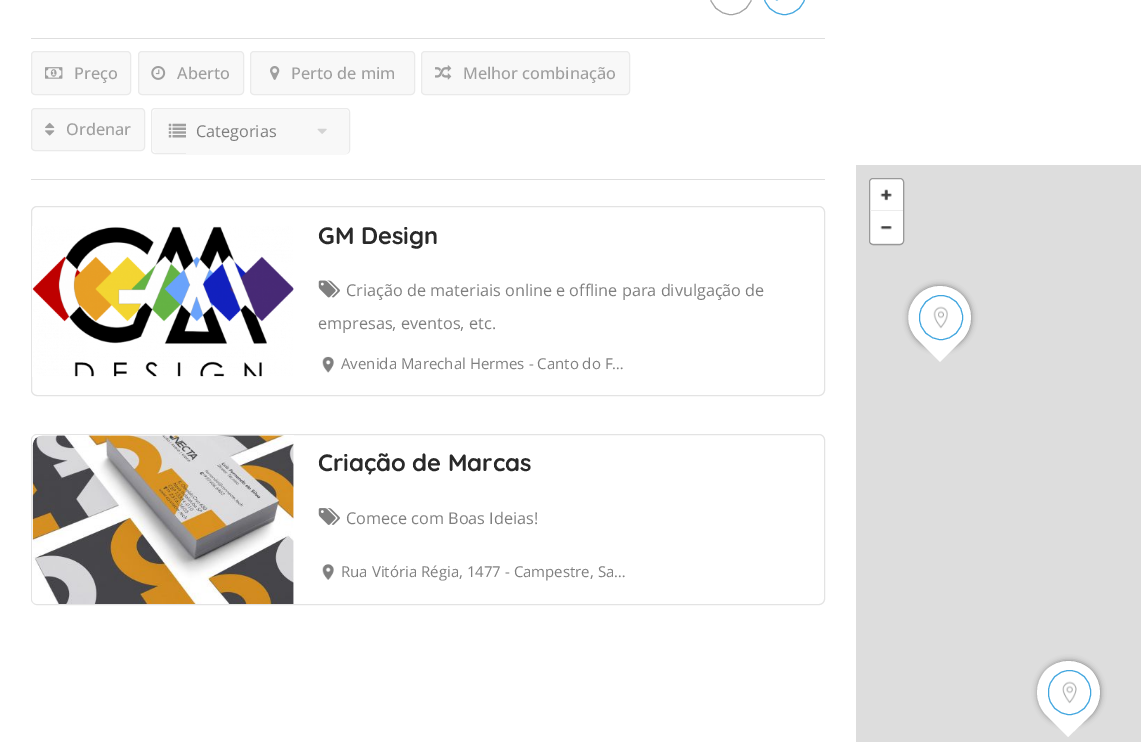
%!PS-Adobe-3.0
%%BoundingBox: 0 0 1141 742
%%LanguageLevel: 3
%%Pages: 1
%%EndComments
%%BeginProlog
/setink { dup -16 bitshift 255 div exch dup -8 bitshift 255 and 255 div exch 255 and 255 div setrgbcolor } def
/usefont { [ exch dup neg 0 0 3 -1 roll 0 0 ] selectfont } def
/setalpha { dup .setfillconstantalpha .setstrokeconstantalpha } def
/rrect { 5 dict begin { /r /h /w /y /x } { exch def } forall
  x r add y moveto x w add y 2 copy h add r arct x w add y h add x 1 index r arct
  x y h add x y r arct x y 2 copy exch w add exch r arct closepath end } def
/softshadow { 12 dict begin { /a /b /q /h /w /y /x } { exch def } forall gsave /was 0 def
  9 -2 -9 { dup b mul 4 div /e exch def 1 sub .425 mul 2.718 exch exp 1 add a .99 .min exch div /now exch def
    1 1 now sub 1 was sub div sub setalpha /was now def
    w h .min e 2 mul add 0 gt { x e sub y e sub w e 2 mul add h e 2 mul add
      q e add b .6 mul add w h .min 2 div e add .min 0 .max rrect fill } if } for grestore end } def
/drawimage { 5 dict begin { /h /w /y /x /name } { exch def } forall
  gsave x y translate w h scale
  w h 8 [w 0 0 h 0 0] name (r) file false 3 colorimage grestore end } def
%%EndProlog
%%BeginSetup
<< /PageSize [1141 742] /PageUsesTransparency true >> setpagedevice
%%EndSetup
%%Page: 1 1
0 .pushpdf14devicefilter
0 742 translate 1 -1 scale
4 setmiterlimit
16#FFFFFF setink
0 0 1141 742 rectfill
16#A3A3A3 setink
709.5 -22.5 43 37 21.5 rrect stroke
16#41A6DF setink
763.5 -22.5 42 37 21 rrect stroke
(img1.raw) 775 0 4 1 drawimage
16#DEDEDE setink
31 38 794 1 rectfill
31 179 794 1 rectfill
16#F8F8F8 setink
31.5 51.5 99 43 3.5 rrect gsave fill grestore
16#EAEAEA setink
stroke
(img2.raw) 45 67 18 12 drawimage
/OpenSans-Medium 16.25 usefont
16#9F9F9F setink
74 79 moveto (Preço) show
16#F8F8F8 setink
138.5 51.5 105 43 3.5 rrect gsave fill grestore
16#EAEAEA setink
stroke
(img3.raw) 151 66 15 14 drawimage
16#9F9F9F setink
177 79 moveto (Aberto) show
16#F8F8F8 setink
250.5 51.5 164 43 3.5 rrect gsave fill grestore
16#EAEAEA setink
stroke
(img4.raw) 270 66 10 14 drawimage
16#9F9F9F setink
291 79 moveto (Perto de mim) show
16#F8F8F8 setink
421.5 51.5 208 43 3.5 rrect gsave fill grestore
16#EAEAEA setink
stroke
(img5.raw) 435 65 17 15 drawimage
16#9F9F9F setink
463 79 moveto (Melhor combinação) show
16#F8F8F8 setink
31.5 108.5 113 42 3.5 rrect gsave fill grestore
16#EAEAEA setink
stroke
(img6.raw) 45 122 10 14 drawimage
16#9F9F9F setink
66 135 moveto (Ordenar) show
16#EAEAEA setink
151.5 108.5 198 45 3.5 rrect stroke
16#F8F8F8 setink
158 109 moveto 186 109 lineto 186 153 lineto 158 153 lineto 155 153 153 151 153 148 curveto 153 114 lineto 153 111 155 109 158 109 curveto closepath fill
(img7.raw) 168 123 18 15 drawimage
186 109 moveto 343 109 lineto 346.5 109 349 111.5 349 115 curveto 349 149 lineto 349 152.5 346.5 155 343 155 curveto 186 155 lineto closepath fill
/OpenSans-Regular 16.25 usefont
16#7F7F7F setink
196 137 moveto (Categorias) show
(img8.raw) 317 128 10 6 drawimage
16#E3E3E3 setink
31.5 206.5 793 189 5.5 rrect stroke
(img9.raw) 32 226 262 151 drawimage
/Quicksand-Bold 23.75 usefont
16#292929 setink
318 244 moveto (GM Design) show
(img10.raw) 318 280 22 18 drawimage
/OpenSans-Regular 16.25 usefont
16#7F7F7F setink
346 296 moveto (Criação de materiais online e offline para divulgação de) show
318 329 moveto (empresas, eventos, etc.) show
(img11.raw) 322 356 12 17 drawimage
/OpenSans-Regular 15 usefont
341 369 moveto (Avenida Marechal Hermes - Canto do F…) show
16#E3E3E3 setink
31.5 434.5 793 170 5.5 rrect stroke
(img12.raw) 32 435 262 169 drawimage
/Quicksand-Bold 23.75 usefont
16#292929 setink
318 471 moveto (Criação de Marcas) show
(img13.raw) 318 508 22 17 drawimage
/OpenSans-Regular 16.25 usefont
16#7F7F7F setink
346 524 moveto (Comece com Boas Ideias!) show
(img14.raw) 322 564 12 16 drawimage
/OpenSans-Regular 15 usefont
341 577 moveto (Rua Vitória Régia, 1477 - Campestre, Sa…) show
16#DDDDDD setink
856 165 285 577 rectfill
16#FFFFFF setink
869 178 35 67 4 rrect fill
0.4 setalpha
16#000000 setink
869.5 178.5 34 66 3.5 rrect stroke
1 setalpha
(img15.raw) 880 189 12 12 drawimage
16#ECECEC setink
870 210 33 1 rectfill
(img16.raw) 880 226 12 4 drawimage
0.08 setalpha
16#000000 setink
870 243 33 1 rectfill
1 setalpha
909 286 62 63 31 3 0.47 softshadow
16#FFFFFF setink
918 295 moveto 930 283 950 283 962 295 curveto 974 308 974 327 962 340 curveto 940 362 lineto 918 340 lineto 905 327 905 308 918 295 curveto closepath fill
16#41A6DF setink
919.5 295.5 43 44 21.5 rrect stroke
(img17.raw) 933 306 15 23 drawimage
16#000000 setink
1038 661 62 63 31 3 0.47 softshadow
16#FFFFFF setink
1046 670 moveto 1059 658 1078 658 1091 670 curveto 1103 683 1103 702 1091 715 curveto 1068 737 lineto 1046 715 lineto 1034 702 1034 683 1046 670 curveto closepath fill
16#41A6DF setink
1048.5 670.5 42 44 21 rrect stroke
(img18.raw) 1062 681 15 23 drawimage
.poppdf14devicefilter showpage
%%EOF
